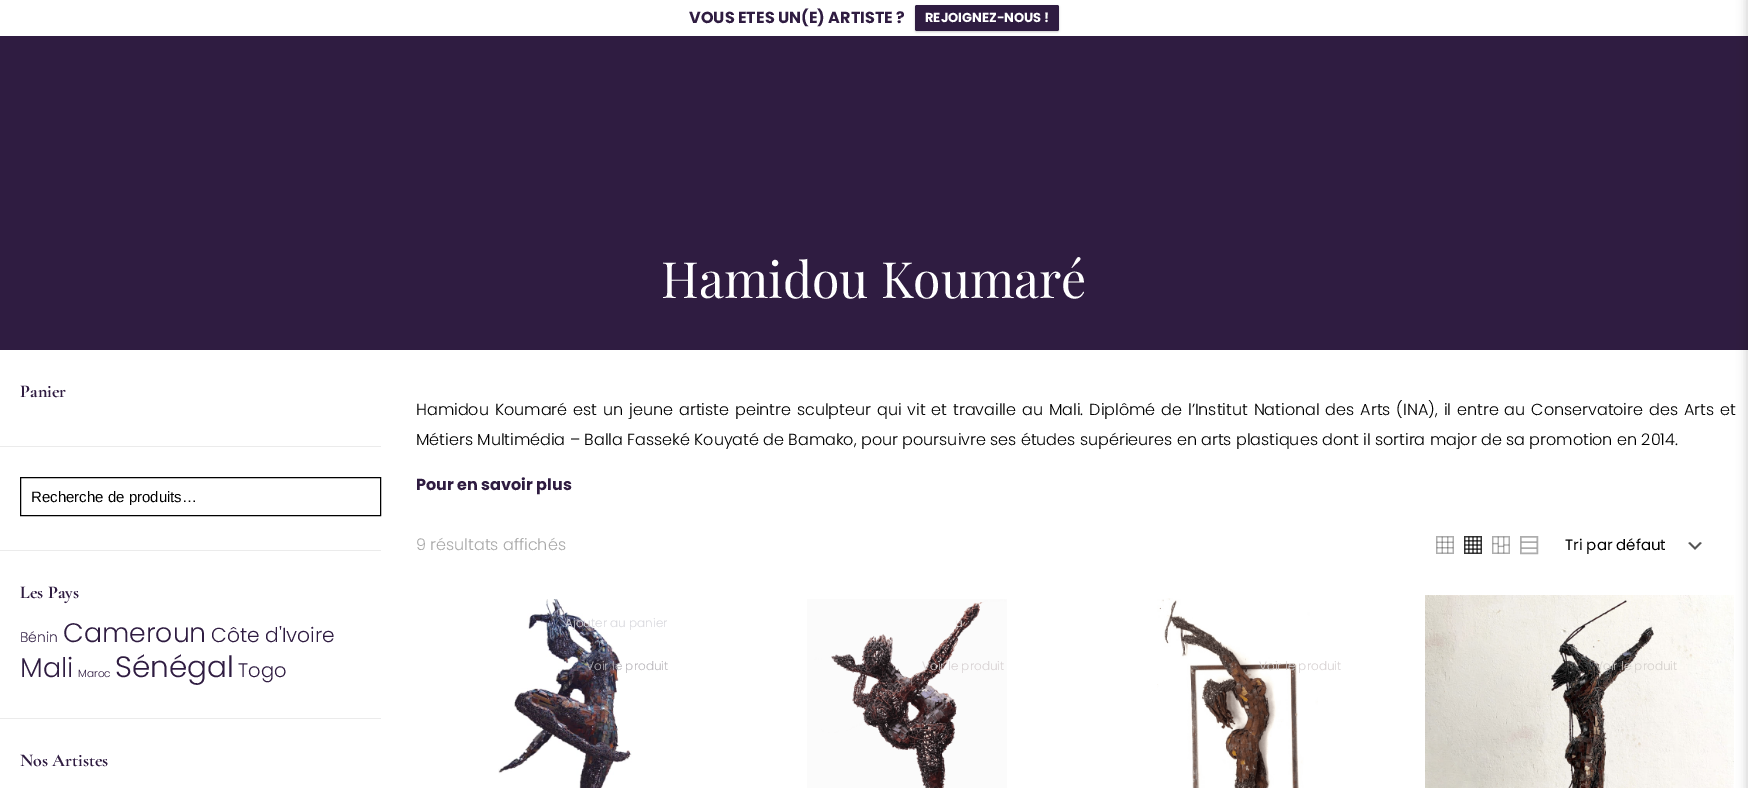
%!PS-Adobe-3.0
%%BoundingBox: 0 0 1748 788
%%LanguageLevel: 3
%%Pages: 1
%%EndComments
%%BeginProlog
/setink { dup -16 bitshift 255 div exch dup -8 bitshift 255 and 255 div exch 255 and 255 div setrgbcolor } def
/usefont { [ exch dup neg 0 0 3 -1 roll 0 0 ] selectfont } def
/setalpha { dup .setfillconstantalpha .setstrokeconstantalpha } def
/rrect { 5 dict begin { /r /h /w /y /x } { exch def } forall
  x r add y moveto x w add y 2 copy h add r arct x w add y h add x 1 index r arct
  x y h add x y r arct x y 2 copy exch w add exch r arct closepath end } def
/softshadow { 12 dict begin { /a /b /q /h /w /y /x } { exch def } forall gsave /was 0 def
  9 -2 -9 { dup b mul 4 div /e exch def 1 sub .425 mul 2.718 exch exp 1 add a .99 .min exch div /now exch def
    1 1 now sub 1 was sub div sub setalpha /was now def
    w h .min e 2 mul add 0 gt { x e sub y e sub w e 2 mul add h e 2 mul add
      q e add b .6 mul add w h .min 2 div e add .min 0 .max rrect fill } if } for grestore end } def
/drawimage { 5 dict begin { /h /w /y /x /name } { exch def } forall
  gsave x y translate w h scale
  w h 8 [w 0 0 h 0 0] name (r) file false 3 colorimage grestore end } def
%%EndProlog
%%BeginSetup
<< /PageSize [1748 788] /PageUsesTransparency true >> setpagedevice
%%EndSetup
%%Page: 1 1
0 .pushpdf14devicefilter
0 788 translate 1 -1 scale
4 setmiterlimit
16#FFFFFF setink
0 0 1748 788 rectfill
/Poppins-Bold 16 usefont
16#2F1C41 setink
689 23 moveto (VOUS ETES UN\(E\) ARTISTE ?) show
16#000000 setink
915 6 144 26 2 1 0.2 softshadow
16#2F1C41 setink
915 5 144 26 2 rrect fill
/Poppins-Bold 13 usefont
16#FFFFFF setink
925 22 moveto (REJOIGNEZ-NOUS !) show
16#2F1C41 setink
0 36 1748 314 rectfill
(img8.raw) 1425 595 309 193 drawimage
16#000000 setink
1747 -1 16 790 0 5 0.2 softshadow
/PlayfairDisplay-Regular 50 usefont
16#FFFFFF setink
661 298 moveto (Hamidou Koumaré) show
/CormorantGaramond-Bold 18 usefont
16#2F1C41 setink
20 397 moveto (Panier) show
16#EBEBEB setink
0 446 381 1 rectfill
16#000000 setink
20.5 477.5 360 38 rectstroke
/LiberationSans-Regular 15 usefont
31 502 moveto (Recherche de produits…) show
16#EBEBEB setink
0 550 381 1 rectfill
/CormorantGaramond-Bold 18 usefont
16#2F1C41 setink
20 598 moveto (Les Pays) show
/Poppins-Light 14 usefont
20 642 moveto (Bénin) show
/Poppins-Light 26.75 usefont
63 642 moveto (Cameroun) show
/Poppins-Light 20.25 usefont
211 642 moveto (Côte d'Ivoire) show
/Poppins-Light 27 usefont
20 677 moveto (Mali) show
/Poppins-Light 10.5 usefont
78 677 moveto (Maroc) show
/Poppins-Light 29.5 usefont
115 677 moveto (Sénégal) show
/Poppins-Light 19.5 usefont
238 677 moveto (Togo) show
16#EBEBEB setink
0 718 381 1 rectfill
/CormorantGaramond-Bold 18 usefont
16#2F1C41 setink
20 766 moveto (Nos Artistes) show
/Poppins-Light 16 usefont
16#000000 setink
416 415 moveto 1.6 0 32 (Hamidou Koumaré est un jeune artiste peintre sculpteur qui vit et travaille au Mali. Diplômé de l’Institut National des Arts \(INA\), il entre au Conservatoire des Arts et) widthshow
416 445 moveto (Métiers Multimédia – Balla Fasseké Kouyaté de Bamako, pour poursuivre ses études supérieures en arts plastiques dont il sortira major de sa promotion en 2014.) show
/Poppins-Bold 16 usefont
16#2F1C41 setink
416 490 moveto (Pour en savoir plus) show
/Poppins-Light 16 usefont
16#A8A8A8 setink
416 550 moveto (9 résultats affichés) show
(img1.raw) 1436 536 18 18 drawimage
(img2.raw) 1464 536 18 18 drawimage
(img3.raw) 1492 536 18 18 drawimage
16#ADADAD setink
1.5 setlinewidth
1520.75 536.75 16.5 16.5 rectstroke
0.8 setalpha
16#999999 setink
1.4 setlinewidth
1521 542 moveto 1537 542 lineto 1521 548 moveto 1537 548 lineto stroke
1 setalpha
(img4.raw) 1688 542 14 8 drawimage
/Poppins-Regular 15 usefont
16#000000 setink
1565 550 moveto (Tri par défaut) show
(img5.raw) 498 599 134 189 drawimage
/Poppins-Light 12 usefont
16#D8D8DD setink
565 627 moveto (Ajouter au panier) show
16#B8B5BA setink
586 670 moveto (Voir le produit) show
(img6.raw) 807 599 200 189 drawimage
16#EEECEC setink
955 627 moveto (u) show
16#D6D0D1 setink
922 670 moveto (Voir le produit) show
(img7.raw) 1157 598 161 190 drawimage
1259 670 moveto (Voir le produit) show
16#D3CFCB setink
1595 670 moveto (Voir le produit) show
.poppdf14devicefilter showpage
%%EOF
